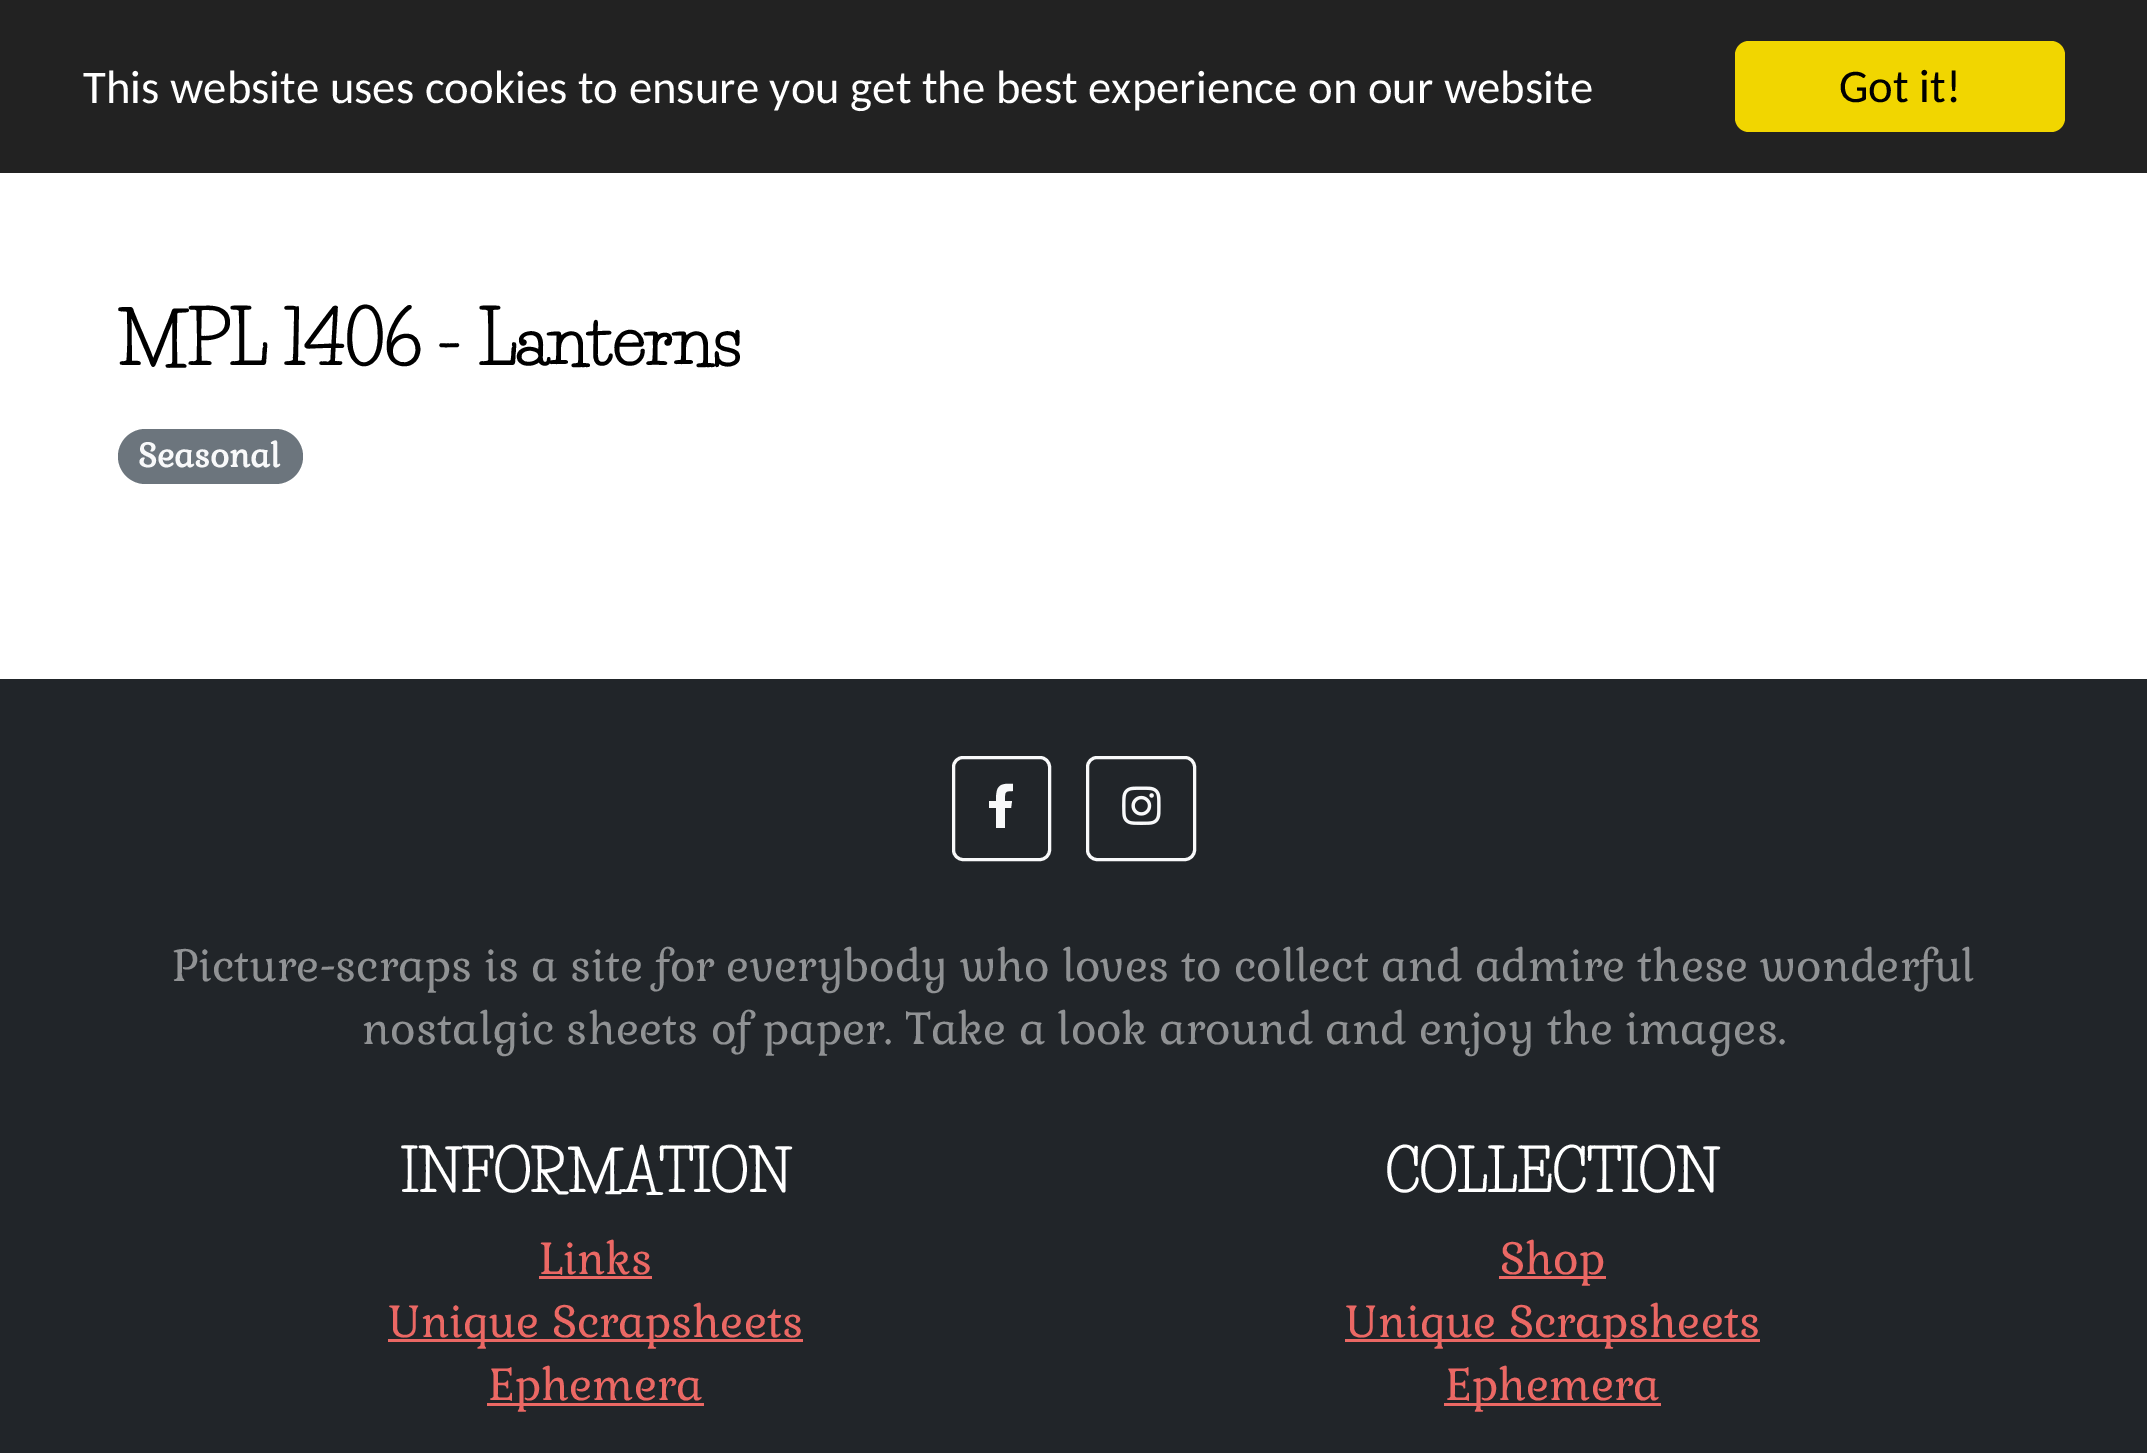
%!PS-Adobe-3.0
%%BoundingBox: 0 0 2147 1453
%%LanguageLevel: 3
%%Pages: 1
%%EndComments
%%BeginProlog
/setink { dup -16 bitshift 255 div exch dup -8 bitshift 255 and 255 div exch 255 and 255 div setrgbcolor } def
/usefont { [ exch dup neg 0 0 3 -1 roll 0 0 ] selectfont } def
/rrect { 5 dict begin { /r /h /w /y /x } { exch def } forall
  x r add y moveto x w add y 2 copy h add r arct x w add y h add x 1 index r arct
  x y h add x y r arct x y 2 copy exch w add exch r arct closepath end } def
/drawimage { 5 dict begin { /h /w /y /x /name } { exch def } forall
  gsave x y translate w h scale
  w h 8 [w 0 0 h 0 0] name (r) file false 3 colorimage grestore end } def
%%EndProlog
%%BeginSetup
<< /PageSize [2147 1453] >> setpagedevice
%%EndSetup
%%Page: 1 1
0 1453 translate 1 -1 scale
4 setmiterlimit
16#FFFFFF setink
0 0 2147 1453 rectfill
16#222222 setink
0 0 2147 173 rectfill
/Carlito-Regular 46.75 usefont
16#FFFFFF setink
83 103 moveto (This website uses cookies to ensure you get the best experience on our website) show
16#F1D600 setink
1735 41 330 91 14 rrect fill
16#000000 setink
1839 102 moveto (Got it!) show
/LifeSavers-Bold 70 usefont
117 365 moveto (MPL 1406 - Lanterns) show
16#6C757D setink
118 429 185 55 27.5 rrect fill
/Gabriela-Bold 33 usefont
16#F8F9FA setink
138 467 moveto (Seasonal) show
16#212529 setink
0 679 2147 774 rectfill
16#F8F9FA setink
3 setlinewidth
953.5 757.5 96 102 9.5 rrect stroke
1011 808 moveto 1005 808 lineto 1005 828 lineto 996 828 lineto 996 808 lineto 989 808 lineto 989 801 lineto 996 801 lineto 996 786 999 783 1013 784 curveto 1013 791 lineto 1004 791 1005 792 1005 801 curveto 1012 801 lineto closepath fill
1087.5 757.5 107 102 9.5 rrect stroke
(img1.raw) 1122 786 39 39 drawimage
/Gabriela-Regular 44 usefont
16#909294 setink
172 981 moveto (Picture-scraps is a site for everybody who loves to collect and admire these wonderful) show
362 1044 moveto (nostalgic sheets of paper. Take a look around and enjoy the images.) show
/LifeSavers-Bold 55 usefont
16#FFFFFF setink
400 1192 moveto (INFORMATION) show
/Gabriela-Regular 44 usefont
16#EB6864 setink
539 1274 moveto (Links) show
539 1276 113 3 rectfill
388 1339 415 3 rectfill
388 1337 moveto (Unique Scrapsheets) show
487 1403 217 3 rectfill
488 1400 moveto (Ephemera) show
/LifeSavers-Bold 55 usefont
16#FFFFFF setink
1385 1192 moveto (COLLECTION) show
16#EB6864 setink
1499 1276 107 3 rectfill
/Gabriela-Regular 44 usefont
1500 1274 moveto (Shop) show
1345 1339 415 3 rectfill
1345 1337 moveto (Unique Scrapsheets) show
1444 1403 217 3 rectfill
1445 1400 moveto (Ephemera) show
showpage
%%EOF
